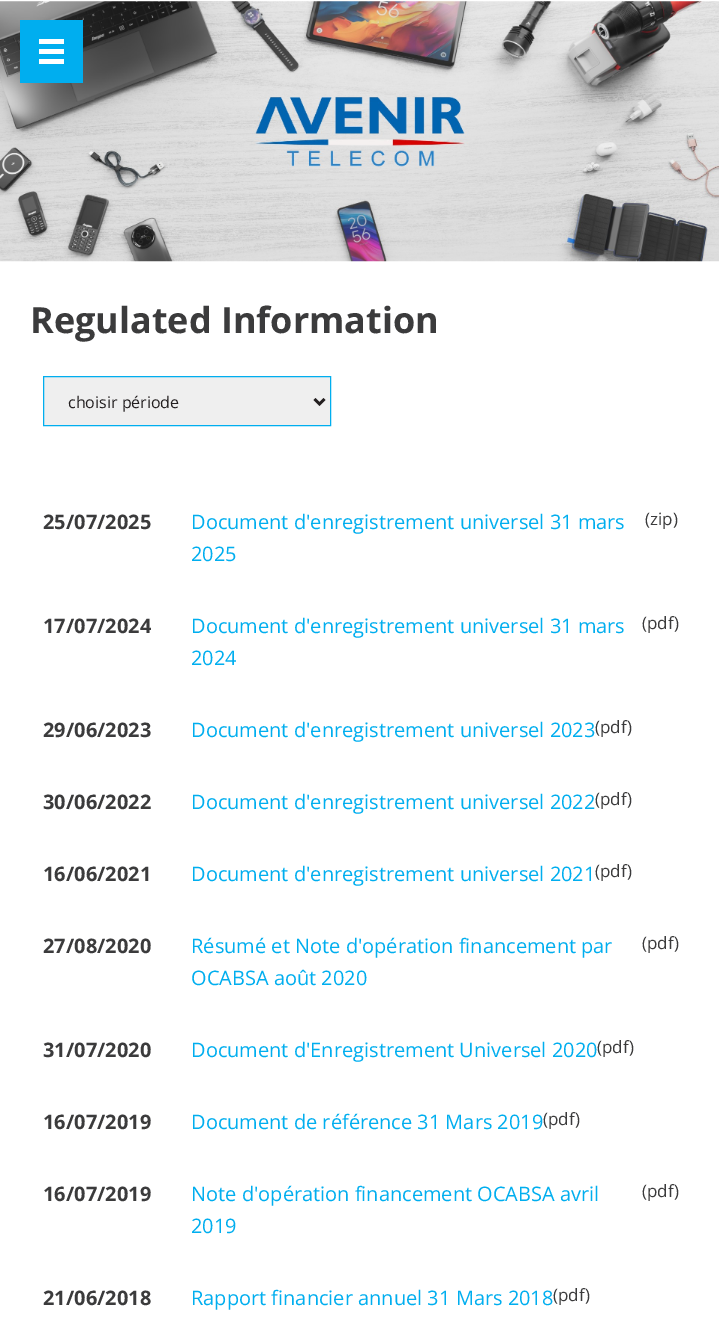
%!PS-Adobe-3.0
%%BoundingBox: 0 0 719 1332
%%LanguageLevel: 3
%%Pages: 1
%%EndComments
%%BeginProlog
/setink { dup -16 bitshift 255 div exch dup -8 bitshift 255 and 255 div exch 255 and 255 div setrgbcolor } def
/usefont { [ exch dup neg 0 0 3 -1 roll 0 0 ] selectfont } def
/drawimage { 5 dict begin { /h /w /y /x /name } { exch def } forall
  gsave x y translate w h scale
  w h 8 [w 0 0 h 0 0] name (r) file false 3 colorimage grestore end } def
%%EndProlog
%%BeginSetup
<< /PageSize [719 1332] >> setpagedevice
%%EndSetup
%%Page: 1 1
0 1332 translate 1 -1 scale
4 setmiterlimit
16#FFFFFF setink
0 0 719 1332 rectfill
(img1.raw) 0 1 719 261 drawimage
[
    [20 20 63 63 16#00AEEF]
    [39 39 25 5 16#FFFFFF]
    [39 49 25 5 16#FFFFFF]
    [39 59 25 5 16#FFFFFF]
] { aload pop setink rectfill } forall
/OpenSans-Bold 36 usefont
16#3B3B3C setink
30 333 moveto (Regulated Information) show
16#EFEFEF setink
43.5 376.5 moveto 330.5 376.5 lineto 330.5 425.5 lineto 43.5 425.5 lineto closepath gsave fill grestore
16#00AEEF setink
stroke
16#231F20 setink
2.5 setlinewidth
314.5 399 moveto 319.5 404 lineto 324.5 399 lineto stroke
/OpenSans-Regular 16 usefont
68 408 moveto (choisir période) show
/OpenSans-Bold 20 usefont
16#3B3B3C setink
43 529 moveto (25/07/2025) show
/OpenSans-Regular 20 usefont
16#00AEEF setink
191 529 moveto (Document d'enregistrement universel 31 mars) show
191 561 moveto (2025) show
/OpenSans-Regular 17 usefont
16#3B3B3C setink
645 525 moveto (\(zip\)) show
/OpenSans-Bold 20 usefont
43 633 moveto (17/07/2024) show
/OpenSans-Regular 20 usefont
16#00AEEF setink
191 633 moveto (Document d'enregistrement universel 31 mars) show
191 665 moveto (2024) show
/OpenSans-Regular 17 usefont
16#3B3B3C setink
642 629 moveto (\(pdf\)) show
/OpenSans-Bold 20 usefont
43 737 moveto (29/06/2023) show
/OpenSans-Regular 20 usefont
16#00AEEF setink
191 737 moveto (Document d'enregistrement universel 2023) show
/OpenSans-Regular 17 usefont
16#3B3B3C setink
595 733 moveto (\(pdf\)) show
/OpenSans-Bold 20 usefont
43 809 moveto (30/06/2022) show
/OpenSans-Regular 20 usefont
16#00AEEF setink
191 809 moveto (Document d'enregistrement universel 2022) show
/OpenSans-Regular 17 usefont
16#3B3B3C setink
595 805 moveto (\(pdf\)) show
/OpenSans-Bold 20 usefont
43 881 moveto (16/06/2021) show
/OpenSans-Regular 20 usefont
16#00AEEF setink
191 881 moveto (Document d'enregistrement universel 2021) show
/OpenSans-Regular 17 usefont
16#3B3B3C setink
595 877 moveto (\(pdf\)) show
/OpenSans-Bold 20 usefont
43 953 moveto (27/08/2020) show
/OpenSans-Regular 20 usefont
16#00AEEF setink
191 953 moveto (Résumé et Note d'opération financement par) show
191 985 moveto (OCABSA août 2020) show
/OpenSans-Regular 17 usefont
16#3B3B3C setink
642 949 moveto (\(pdf\)) show
/OpenSans-Bold 20 usefont
43 1057 moveto (31/07/2020) show
/OpenSans-Regular 20 usefont
16#00AEEF setink
191 1057 moveto (Document d'Enregistrement Universel 2020) show
/OpenSans-Regular 17 usefont
16#3B3B3C setink
597 1053 moveto (\(pdf\)) show
/OpenSans-Bold 20 usefont
43 1129 moveto (16/07/2019) show
/OpenSans-Regular 20 usefont
16#00AEEF setink
191 1129 moveto (Document de référence 31 Mars 2019) show
/OpenSans-Regular 17 usefont
16#3B3B3C setink
543 1125 moveto (\(pdf\)) show
/OpenSans-Bold 20 usefont
43 1201 moveto (16/07/2019) show
/OpenSans-Regular 20 usefont
16#00AEEF setink
191 1201 moveto (Note d'opération financement OCABSA avril) show
191 1233 moveto (2019) show
/OpenSans-Regular 17 usefont
16#3B3B3C setink
642 1197 moveto (\(pdf\)) show
/OpenSans-Bold 20 usefont
43 1305 moveto (21/06/2018) show
/OpenSans-Regular 20 usefont
16#00AEEF setink
191 1305 moveto (Rapport financier annuel 31 Mars 2018) show
/OpenSans-Regular 17 usefont
16#3B3B3C setink
553 1301 moveto (\(pdf\)) show
showpage
%%EOF
